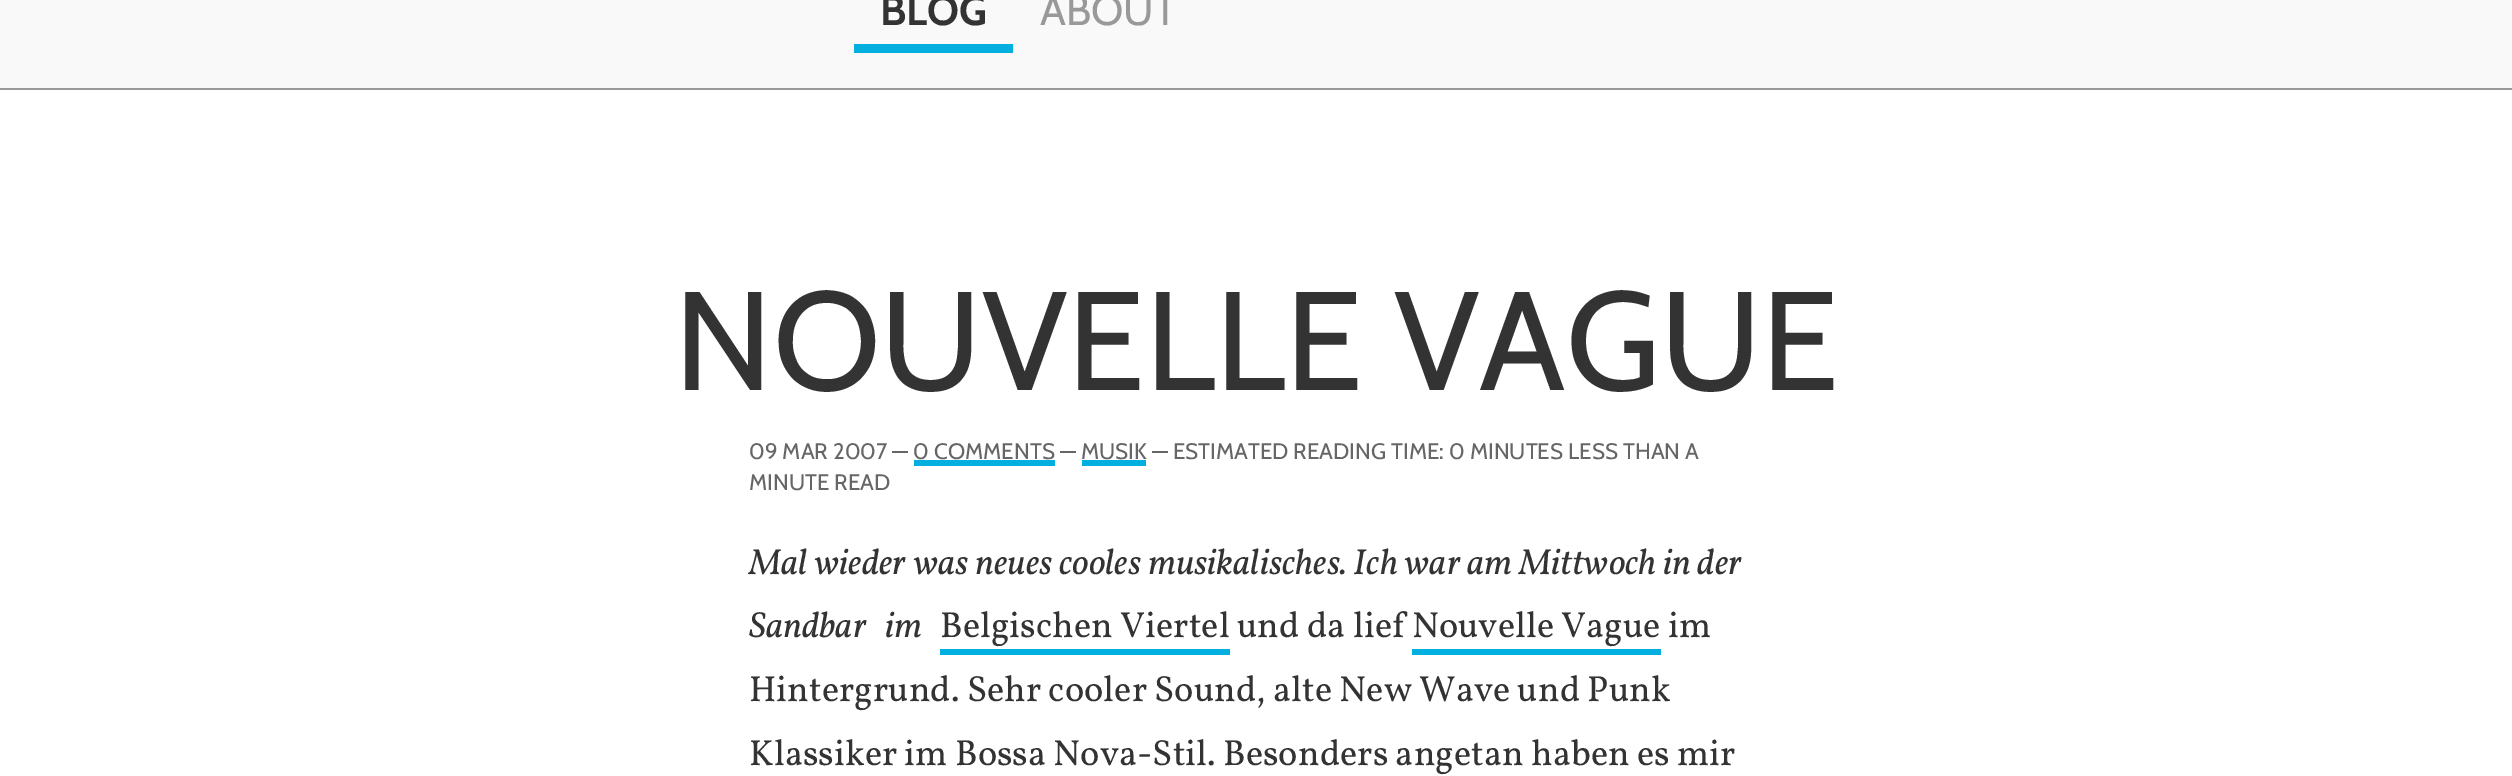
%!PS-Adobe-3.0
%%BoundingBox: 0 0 2512 776
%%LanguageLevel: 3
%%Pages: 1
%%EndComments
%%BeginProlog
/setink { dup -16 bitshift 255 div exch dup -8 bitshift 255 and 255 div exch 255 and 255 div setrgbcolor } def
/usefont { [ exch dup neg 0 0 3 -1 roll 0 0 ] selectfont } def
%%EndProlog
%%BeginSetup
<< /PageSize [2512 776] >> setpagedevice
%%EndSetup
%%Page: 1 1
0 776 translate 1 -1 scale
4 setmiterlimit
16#FFFFFF setink
0 0 2512 776 rectfill
16#F9F9F9 setink
0 0 2512 88 rectfill
16#999999 setink
0 88 2512 2 rectfill
/Cabin-Bold 42 usefont
16#333333 setink
880 25 moveto (BLOG) show
16#03AFDF setink
854 44 159 9 rectfill
/Cabin-Regular 42 usefont
16#999999 setink
1040 25 moveto (ABOUT) show
/Cabin-Regular 140 usefont
16#333333 setink
674 390 moveto (NOUVELLE VAGUE) show
/Cabin-Regular 22.4 usefont
16#666666 setink
749 459 moveto (09 MAR 2007 — 0 COMMENTS — MUSIK — ESTIMATED READING TIME: 0 MINUTES LESS THAN A) show
16#03AFDF setink
914 460 141 6 rectfill
1082 460 64 6 rectfill
16#666666 setink
749 490 moveto (MINUTE READ) show
/Vollkorn-Italic 36.4 usefont
16#333333 setink
749 574 moveto (Mal wieder was neues cooles musikalisches. Ich war am Mittwoch in der) show
749 637 moveto 12 0 32 (Sandbar im) widthshow
/Vollkorn-Regular 36.4 usefont
940 637 moveto (Belgischen Viertel und da lief Nouvelle Vague im) show
16#03AFDF setink
940 649 290 6 rectfill
1412 649 249 6 rectfill
16#333333 setink
749 701 moveto (Hintergrund. Sehr cooler Sound, alte New Wave und Punk) show
749 765 moveto (Klassiker im Bossa Nova-Stil. Besonders angetan haben es mir) show
showpage
%%EOF
